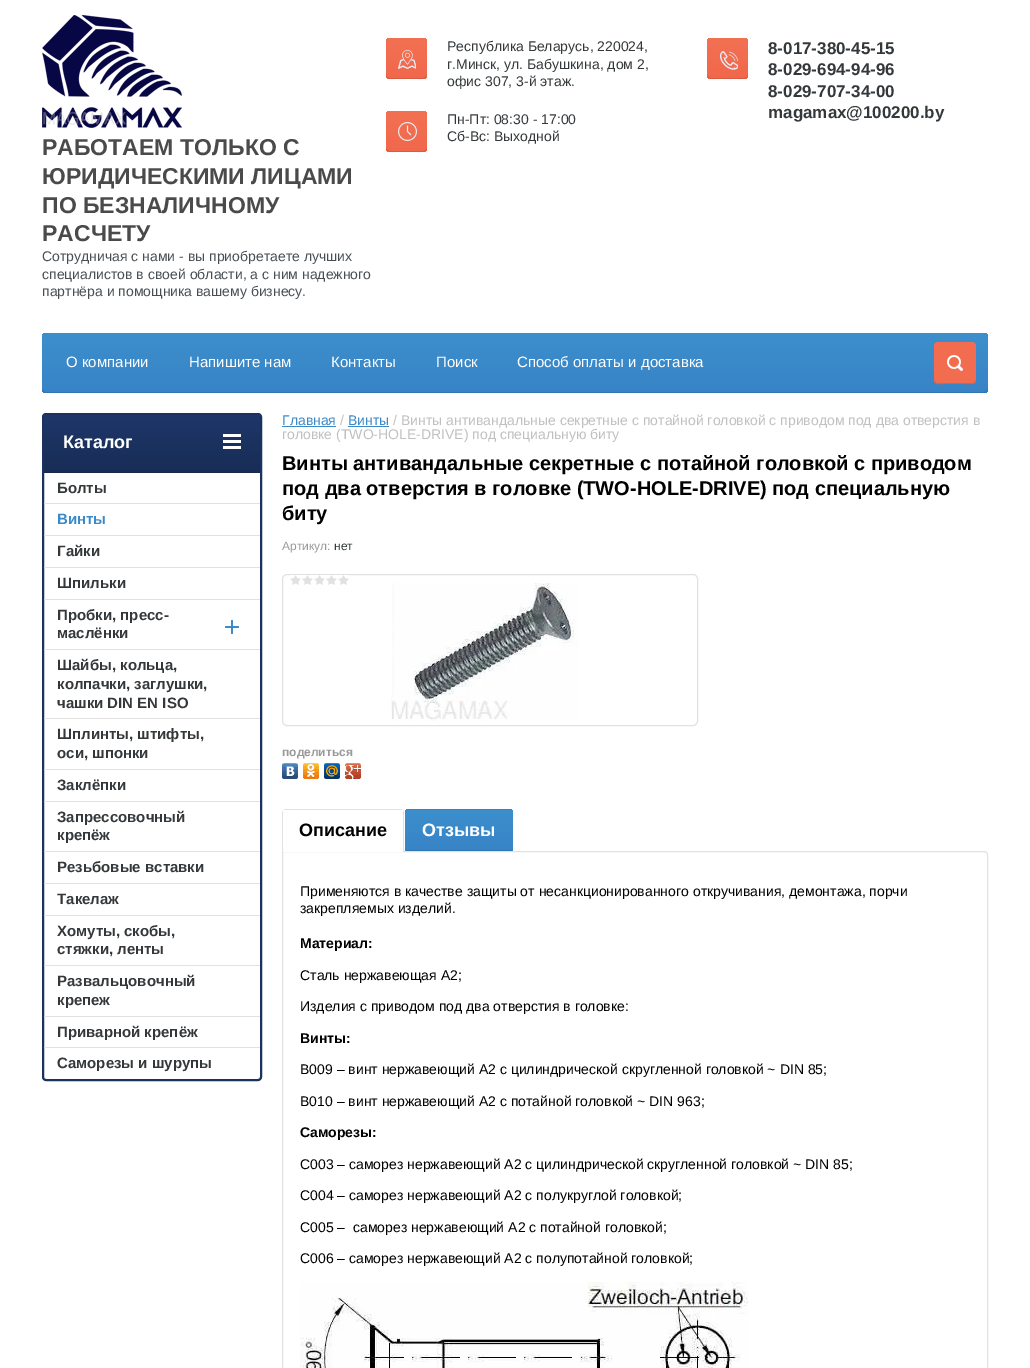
%!PS-Adobe-3.0
%%BoundingBox: 0 0 1030 1368
%%LanguageLevel: 3
%%Pages: 1
%%EndComments
%%BeginProlog
/setink { dup -16 bitshift 255 div exch dup -8 bitshift 255 and 255 div exch 255 and 255 div setrgbcolor } def
/usefont { [ exch dup neg 0 0 3 -1 roll 0 0 ] selectfont } def
/setalpha { dup .setfillconstantalpha .setstrokeconstantalpha } def
/rrect { 5 dict begin { /r /h /w /y /x } { exch def } forall
  x r add y moveto x w add y 2 copy h add r arct x w add y h add x 1 index r arct
  x y h add x y r arct x y 2 copy exch w add exch r arct closepath end } def
/drawimage { 5 dict begin { /h /w /y /x /name } { exch def } forall
  gsave x y translate w h scale
  w h 8 [w 0 0 h 0 0] name (r) file false 3 colorimage grestore end } def
%%EndProlog
%%BeginSetup
<< /PageSize [1030 1368] /PageUsesTransparency true >> setpagedevice
%%EndSetup
%%Page: 1 1
0 .pushpdf14devicefilter
0 1368 translate 1 -1 scale
4 setmiterlimit
16#FFFFFF setink
0 0 1030 1368 rectfill
gsave 386 38 41 41 4 rrect clip newpath
<< /ShadingType 2 /ColorSpace /DeviceRGB /Coords [407 79 407 38] /Extend [true true] /Function << /FunctionType 2 /Domain [0 1] /C0 [0.945 0.404 0.294] /C1 [0.953 0.443 0.325] /N 1 >> >> shfill grestore
0.1 setalpha
16#000000 setink
386 74 moveto 386 80 391 79 396 79 curveto 418 79 lineto 422 79 427 80 427 74 curveto 427 76 425 78 423 78 curveto 390 78 lineto 388 78 386 76 386 74 curveto closepath fill
1 setalpha
(img1.raw) 398 50 18 19 drawimage
/LiberationSans-Regular 14 usefont
16#34383A setink
[
    [(Республика Беларусь, 220024,) 447 51]
    [(г.Минск, ул. Бабушкина, дом 2,) 447 69]
    [(офис 307, 3-й этаж.) 447 86]
] { aload pop moveto show } forall
gsave 386 111 41 41 4 rrect clip newpath
<< /ShadingType 2 /ColorSpace /DeviceRGB /Coords [407 152 407 111] /Extend [true true] /Function << /FunctionType 2 /Domain [0 1] /C0 [0.945 0.404 0.294] /C1 [0.953 0.443 0.325] /N 1 >> >> shfill grestore
0.1 setalpha
16#000000 setink
386 147 moveto 386 153 391 152 396 152 curveto 418 152 lineto 422 152 427 153 427 147 curveto 427 149 425 151 423 151 curveto 390 151 lineto 388 151 386 149 386 147 curveto closepath fill
1 setalpha
(img2.raw) 398 122 19 19 drawimage
16#34383A setink
447 124 moveto (Пн-Пт: 08:30 - 17:00) show
447 141 moveto (Сб-Вс: Выходной) show
gsave 707 38 41 41 4 rrect clip newpath
<< /ShadingType 2 /ColorSpace /DeviceRGB /Coords [728 79 728 38] /Extend [true true] /Function << /FunctionType 2 /Domain [0 1] /C0 [0.945 0.404 0.294] /C1 [0.953 0.443 0.325] /N 1 >> >> shfill grestore
0.1 setalpha
16#000000 setink
707 74 moveto 707 80 712 79 716 79 curveto 738 79 lineto 743 79 748 80 748 74 curveto 748 76 746 78 744 78 curveto 711 78 lineto 709 78 707 76 707 74 curveto closepath fill
1 setalpha
(img3.raw) 720 51 18 19 drawimage
/LiberationSans-Bold 17 usefont
16#34383A setink
[
    [(8-017-380-45-15) 768 54]
    [(8-029-694-94-96) 768 75]
    [(8-029-707-34-00) 768 97]
    [(magamax@100200.by) 768 118]
] { aload pop moveto show } forall
(img4.raw) 42 15 140 113 drawimage
/LiberationSans-Bold 23 usefont
16#4A4A4A setink
[
    [(РАБОТАЕМ ТОЛЬКО С) 42 155]
    [(ЮРИДИЧЕСКИМИ ЛИЦАМИ) 42 184]
    [(ПО БЕЗНАЛИЧНОМУ) 42 213]
    [(РАСЧЕТУ) 42 241]
] { aload pop moveto show } forall
/LiberationSans-Regular 14 usefont
16#474F54 setink
[
    [(Сотрудничая с нами - вы приобретаете лучших) 42 261]
    [(специалистов в своей области, а с ним надежного) 42 279]
    [(партнёра и помощника вашему бизнесу.) 42 296]
] { aload pop moveto show } forall
gsave 42 333 946 60 4 rrect clip newpath
<< /ShadingType 2 /ColorSpace /DeviceRGB /Coords [515 393 515 333] /Extend [true true] /Function << /FunctionType 2 /Domain [0 1] /C0 [0.216 0.514 0.776] /C1 [0.239 0.561 0.8] /N 1 >> >> shfill grestore
0.1 setalpha
16#000000 setink
42 388 moveto 42 391 43 393 46 393 curveto 984 393 lineto 987 393 988 391 988 388 curveto 988 390 986 392 984 392 curveto 46 392 lineto 44 392 42 390 42 388 curveto closepath fill
/LiberationSans-Regular 15 usefont
1 setalpha
16#FFFFFF setink
[
    [(О компании) 66 367]
    [(Напишите нам) 189 367]
    [(Контакты) 331 367]
    [(Поиск) 436 367]
    [(Способ оплаты и доставка) 517 367]
] { aload pop moveto show } forall
16#F26C4F setink
934 342 42 42 4 rrect fill
16#DA6147 setink
934 379 moveto 934 385 939 384 944 384 curveto 966 384 lineto 971 384 976 385 976 379 curveto 976 381 974 383 972 383 curveto 938 383 lineto 936 383 934 381 934 379 curveto closepath fill
(img5.raw) 947 355 16 16 drawimage
16#1B325F setink
2 setlinewidth
43 414 218 666 3 rrect stroke
gsave 44 415 moveto 260 415 lineto 260 472 lineto 44 472 lineto closepath clip newpath
<< /ShadingType 2 /ColorSpace /DeviceRGB /Coords [152 473 152 415] /Extend [true true] /Function << /FunctionType 2 /Domain [0 1] /C0 [0.094 0.176 0.337] /C1 [0.118 0.216 0.412] /N 1 >> >> shfill grestore
16#16294D setink
44 472 216 1 rectfill
/LiberationSans-Bold 18 usefont
16#FFFFFF setink
63 448 moveto (Каталог) show
[
    [223 434 18 3 16#FFFFFF]
    [223 440 18 3 16#FFFFFF]
    [223 446 18 3 16#FFFFFF]
] { aload pop setink rectfill } forall
/LiberationSans-Bold 15 usefont
16#34383A setink
57 493 moveto (Болты) show
16#E1E1E1 setink
44 503 216 1 rectfill
16#3A89C9 setink
57 524 moveto (Винты) show
16#E1E1E1 setink
44 535 216 1 rectfill
16#34383A setink
57 556 moveto (Гайки) show
16#E1E1E1 setink
44 567 216 1 rectfill
16#34383A setink
57 588 moveto (Шпильки) show
16#E1E1E1 setink
44 599 216 1 rectfill
16#34383A setink
57 620 moveto (Пробки, пресс-) show
57 638 moveto (маслёнки) show
(img6.raw) 225 620 14 14 drawimage
16#E1E1E1 setink
44 649 216 1 rectfill
16#34383A setink
[
    [(Шайбы, кольца,) 57 670]
    [(колпачки, заглушки,) 57 689]
    [(чашки DIN EN ISO) 57 708]
] { aload pop moveto show } forall
16#E1E1E1 setink
44 718 216 1 rectfill
16#34383A setink
57 739 moveto (Шплинты, штифты,) show
57 758 moveto (оси, шпонки) show
16#E1E1E1 setink
44 769 216 1 rectfill
16#34383A setink
57 790 moveto (Заклёпки) show
16#E1E1E1 setink
44 801 216 1 rectfill
16#34383A setink
57 822 moveto (Запрессовочный) show
57 840 moveto (крепёж) show
16#E1E1E1 setink
44 851 216 1 rectfill
16#34383A setink
57 872 moveto (Резьбовые вставки) show
16#E1E1E1 setink
44 883 216 1 rectfill
16#34383A setink
57 904 moveto (Такелаж) show
16#E1E1E1 setink
44 915 216 1 rectfill
16#34383A setink
57 936 moveto (Хомуты, скобы,) show
57 954 moveto (стяжки, ленты) show
16#E1E1E1 setink
44 965 216 1 rectfill
16#34383A setink
57 986 moveto (Развальцовочный) show
57 1005 moveto (крепеж) show
16#E1E1E1 setink
44 1016 216 1 rectfill
16#34383A setink
57 1037 moveto (Приварной крепёж) show
16#E1E1E1 setink
44 1047 216 1 rectfill
16#34383A setink
57 1068 moveto (Саморезы и шурупы) show
/LiberationSans-Regular 14 usefont
16#3A89C9 setink
282 425 moveto (Главная) show
282 426 54 1 rectfill
16#C0C0C0 setink
340 425 moveto (/) show
16#3A89C9 setink
348 425 moveto (Винты) show
348 426 41 1 rectfill
16#C0C0C0 setink
393 425 moveto (/ Винты антивандальные секретные с потайной головкой с приводом под два отверстия в) show
282 439 moveto (головке \(TWO-HOLE-DRIVE\) под специальную биту) show
/LiberationSans-Bold 20 usefont
16#000000 setink
[
    [(Винты антивандальные секретные с потайной головкой с приводом) 282 470]
    [(под два отверстия в головке \(TWO-HOLE-DRIVE\) под специальную) 282 495]
    [(биту) 282 520]
] { aload pop moveto show } forall
/LiberationSans-Regular 12 usefont
16#999999 setink
282 550 moveto (Артикул:) show
16#34383A setink
334 550 moveto (нет) show
16#E1E1E1 setink
1 setlinewidth
282.5 574.5 415 151 4.5 rrect stroke
(img7.raw) 290 575 59 10 drawimage
(img8.raw) 391 583 187 138 drawimage
/LiberationSans-Bold 12 usefont
16#999999 setink
282 756 moveto (поделиться) show
(img9.raw) 282 763 16 16 drawimage
(img10.raw) 303 763 16 16 drawimage
(img11.raw) 324 763 16 16 drawimage
(img12.raw) 345 763 16 16 drawimage
16#E1E1E1 setink
282.5 851.5 moveto 984 851.5 lineto 986 851.5 987.5 853 987.5 855 curveto 987.5 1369 lineto 987.5 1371 986 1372.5 984 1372.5 curveto 286 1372.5 lineto 284 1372.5 282.5 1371 282.5 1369 curveto closepath stroke
16#FFFFFF setink
286 809 moveto 400 809 lineto 402 809 404 811 404 813 curveto 404 852 lineto 282 852 lineto 282 813 lineto 282 811 284 809 286 809 curveto closepath fill
16#E1E1E1 setink
286 809 moveto 400 809 lineto 402 809 404 811 404 813 curveto 404 852 lineto 282 852 lineto 282 813 lineto 282 811 284 809 286 809 curveto closepath 286 810 moveto 400 810 lineto 402 810 403 811 403 813 curveto 403 852 lineto 283 852 lineto 283 813 lineto 283 811 284 810 286 810 curveto closepath eofill
16#FFFFFF setink
283 810 120 2 rectfill
/LiberationSans-Bold 18 usefont
16#000000 setink
299 836 moveto (Описание) show
gsave
409 809 moveto 509 809 lineto 511 809 513 811 513 813 curveto 513 851 lineto 405 851 lineto 405 813 lineto 405 811 407 809 409 809 curveto closepath clip newpath
gsave 405 809 moveto 513 809 lineto 513 810 lineto 405 810 lineto closepath clip newpath
<< /ShadingType 2 /ColorSpace /DeviceRGB /Coords [459 810 459 769] /Extend [true true] /Function << /FunctionType 2 /Domain [0 1] /C0 [0.216 0.514 0.776] /C1 [0.239 0.561 0.8] /N 1 >> >> shfill grestore
gsave 405 810 moveto 513 810 lineto 513 851 lineto 405 851 lineto closepath clip newpath
<< /ShadingType 2 /ColorSpace /DeviceRGB /Coords [459 851 459 810] /Extend [true true] /Function << /FunctionType 2 /Domain [0 1] /C0 [0.216 0.514 0.776] /C1 [0.239 0.561 0.8] /N 1 >> >> shfill grestore
grestore
16#3276B2 setink
406 850 106 1 rectfill
16#FFFFFF setink
422 836 moveto (Отзывы) show
/LiberationSans-Regular 14 usefont
16#000000 setink
300 896 moveto (Применяются в качестве защиты от несанкционированного откручивания, демонтажа, порчи) show
300 913 moveto (закрепляемых изделий.) show
/LiberationSans-Bold 14 usefont
300 948 moveto (Материал:) show
/LiberationSans-Regular 14 usefont
300 980 moveto (Сталь нержавеющая A2;) show
300 1011 moveto (Изделия с приводом под два отверстия в головке:) show
/LiberationSans-Bold 14 usefont
300 1043 moveto (Винты:) show
/LiberationSans-Regular 14 usefont
300 1074 moveto (В009 – винт нержавеющий A2 с цилиндрической скругленной головкой ~ DIN 85;) show
300 1106 moveto (В010 – винт нержавеющий A2 с потайной головкой ~ DIN 963;) show
/LiberationSans-Bold 14 usefont
300 1137 moveto (Саморезы:) show
/LiberationSans-Regular 14 usefont
[
    [(С003 – саморез нержавеющий A2 с цилиндрической скругленной головкой ~ DIN 85;) 300 1169]
    [(С004 – саморез нержавеющий A2 с полукруглой головкой;) 300 1200]
    [(С005 –  саморез нержавеющий A2 с потайной головкой;) 300 1232]
    [(С006 – саморез нержавеющий A2 с полупотайной головкой;) 300 1263]
] { aload pop moveto show } forall
(img13.raw) 300 1282 448 86 drawimage
.poppdf14devicefilter showpage
%%EOF
